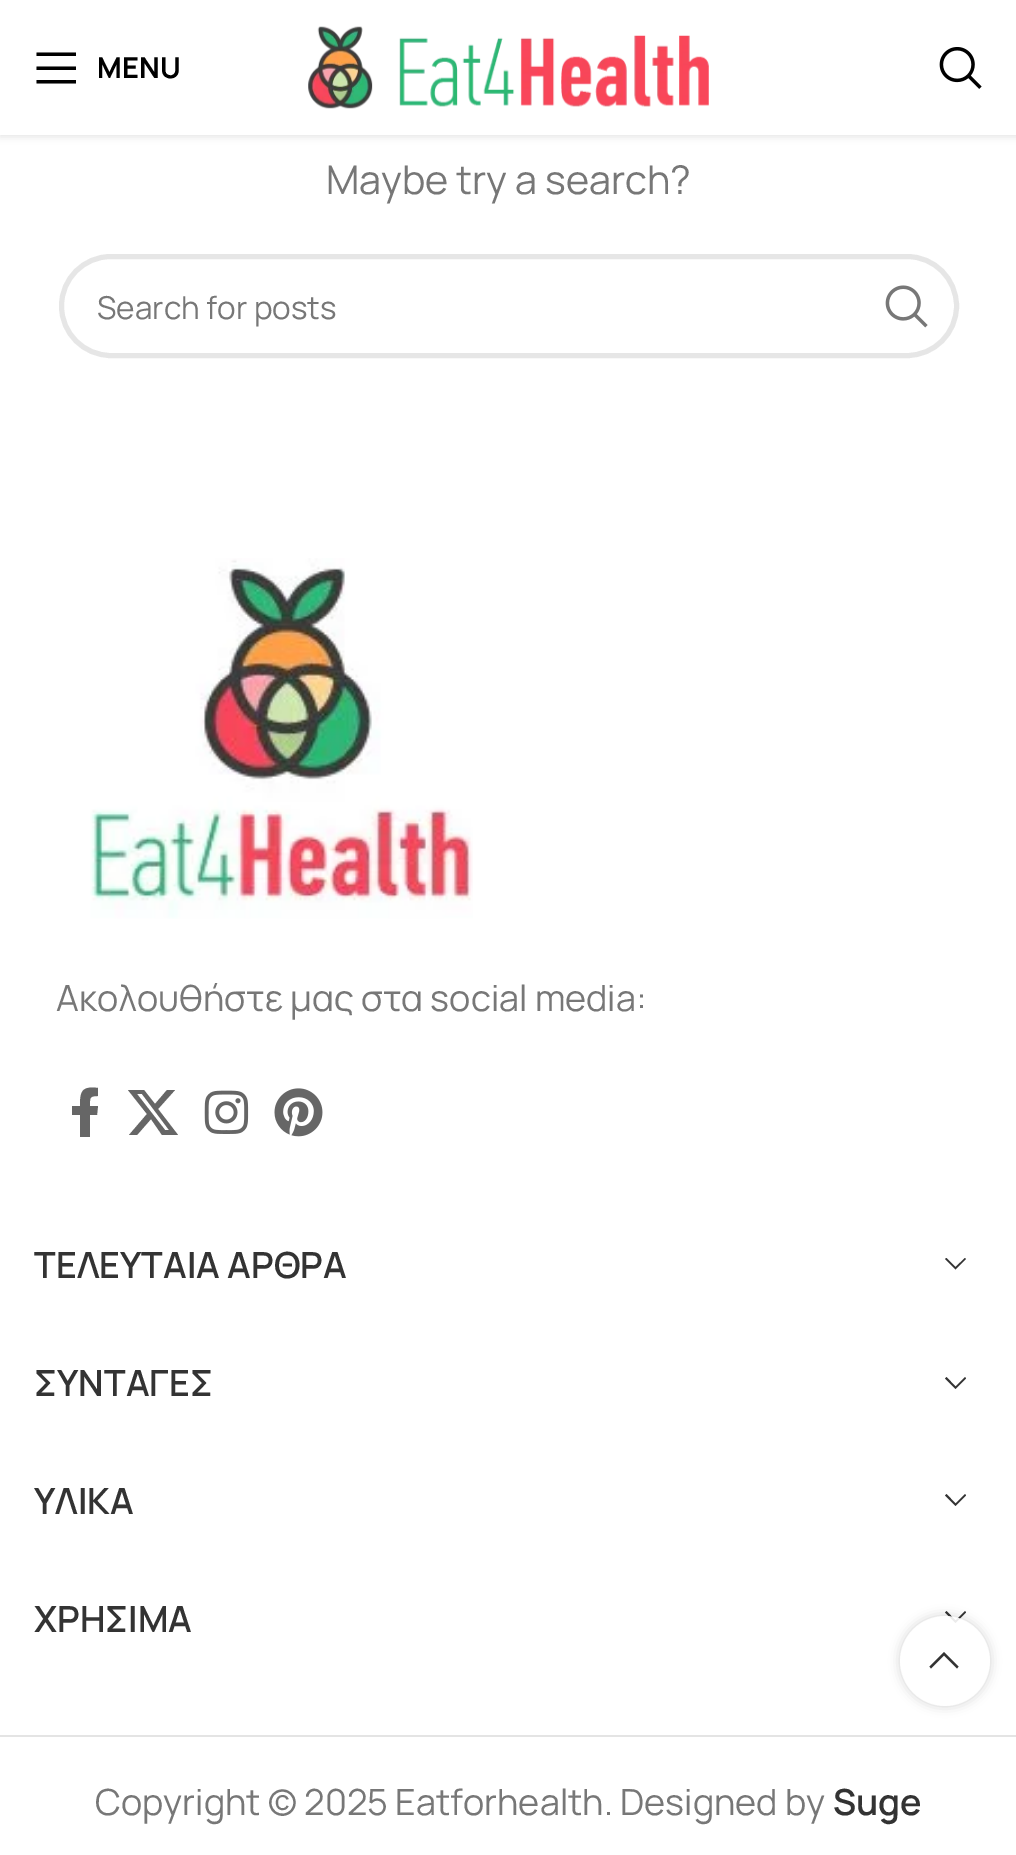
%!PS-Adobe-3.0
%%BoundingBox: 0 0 1016 1855
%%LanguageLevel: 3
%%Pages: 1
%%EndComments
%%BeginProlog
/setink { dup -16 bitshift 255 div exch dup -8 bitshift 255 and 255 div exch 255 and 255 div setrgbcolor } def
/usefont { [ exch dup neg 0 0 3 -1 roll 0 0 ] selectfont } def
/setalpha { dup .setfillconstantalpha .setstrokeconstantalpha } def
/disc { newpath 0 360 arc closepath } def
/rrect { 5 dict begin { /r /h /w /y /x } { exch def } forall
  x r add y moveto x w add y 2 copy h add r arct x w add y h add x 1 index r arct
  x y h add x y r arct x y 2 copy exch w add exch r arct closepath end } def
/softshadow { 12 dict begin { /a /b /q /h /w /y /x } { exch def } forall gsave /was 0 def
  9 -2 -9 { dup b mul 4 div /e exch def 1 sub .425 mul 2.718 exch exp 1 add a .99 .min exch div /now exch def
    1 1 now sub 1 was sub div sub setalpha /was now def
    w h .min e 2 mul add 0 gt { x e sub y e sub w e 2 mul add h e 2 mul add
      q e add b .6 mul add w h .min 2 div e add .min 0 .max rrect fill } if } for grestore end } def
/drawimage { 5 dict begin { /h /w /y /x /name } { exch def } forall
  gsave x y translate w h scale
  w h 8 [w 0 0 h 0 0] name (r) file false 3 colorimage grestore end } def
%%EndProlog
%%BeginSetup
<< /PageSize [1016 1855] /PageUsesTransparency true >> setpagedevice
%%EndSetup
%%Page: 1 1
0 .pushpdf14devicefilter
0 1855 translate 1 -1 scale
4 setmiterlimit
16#FFFFFF setink
0 0 1016 1855 rectfill
16#000000 setink
0 2 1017 135 0 3.5 0.1 softshadow
16#FFFFFF setink
0 0 1016 135 rectfill
16#000000 setink
36.5 56 moveto 76 56 lineto 76 52.5 lineto 36.5 52.5 lineto closepath 36.5 70 moveto 76 70 lineto 76 66.5 lineto 36.5 66.5 lineto closepath 36.5 83.5 moveto 76 83.5 lineto 76 80 lineto 36.5 80 lineto closepath fill
/Manrope-Bold 29 usefont
97 78 moveto (MENU) show
(img1.raw) 308 26 401 83 drawimage
(img2.raw) 939 47 43 42 drawimage
/Manrope-Regular 39.5 usefont
16#777777 setink
326 194 moveto (Maybe try a search?) show
16#E6E6E6 setink
5 setlinewidth
61.5 256.5 895 99 49.5 rrect stroke
/Manrope-Regular 31.5 usefont
16#777777 setink
97 319 moveto (Search for posts) show
(img3.raw) 885 285 43 43 drawimage
(img4.raw) 90 558 383 361 drawimage
/Manrope-Regular 36 usefont
56 1011 moveto (Ακολουθήστε μας στα social media:) show
16#666666 setink
97 1115 moveto 98 1106 lineto 90 1106 lineto 90 1098 89 1096 98 1096 curveto 98 1088 lineto 82 1086 80 1091 80 1106 curveto 72 1106 lineto 72 1115 lineto 80 1115 lineto 80 1137 lineto 90 1137 lineto 90 1115 lineto closepath fill
167 1090 moveto 175 1090 lineto 158 1109 lineto 178 1135 lineto 162 1135 lineto 151 1119 lineto 137 1135 lineto 129 1135 lineto 147 1114 lineto 128 1090 lineto 144 1090 lineto 155 1104 lineto closepath 165 1130 moveto 169 1130 lineto 142 1094 lineto 137 1094 lineto closepath fill
(img5.raw) 204 1090 45 44 drawimage
(img6.raw) 274 1088 49 49 drawimage
/Manrope-SemiBold 36 usefont
16#333333 setink
34 1278 moveto (ΤΕΛΕΥΤΑΙΑ ΑΡΘΡΑ) show
965 1258 moveto 955.5 1267 lineto 946.5 1258 lineto 945 1259 lineto 955.5 1269.5 lineto 966 1259 lineto closepath fill
34 1396 moveto (ΣΥΝΤΑΓΕΣ) show
965 1377 moveto 955.5 1386.5 lineto 946.5 1377 lineto 945 1378.5 lineto 955.5 1389 lineto 966 1378.5 lineto closepath fill
34 1514 moveto (ΥΛΙΚΑ) show
965 1494 moveto 955.5 1503.5 lineto 946.5 1494 lineto 945 1495.5 lineto 955.5 1506 lineto 966 1495.5 lineto closepath fill
34 1632 moveto (ΧΡΗΣΙΜΑ) show
965 1611 moveto 955.5 1620.5 lineto 946.5 1611 lineto 945 1612.5 lineto 955.5 1623 lineto 966 1612.5 lineto closepath fill
16#E4E4E4 setink
0 1735 1016 2 rectfill
/Manrope-Regular 36 usefont
16#777777 setink
95 1815 moveto (Copyright © 2025 Eatforhealth. Designed by) show
/Manrope-SemiBold 36 usefont
16#333333 setink
833 1815 moveto (Suge) show
gsave
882 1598 moveto 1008 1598 lineto 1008 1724 lineto 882 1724 lineto closepath 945 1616 moveto 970 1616 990 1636 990 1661 curveto 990 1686 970 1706 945 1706 curveto 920 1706 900 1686 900 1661 curveto 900 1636 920 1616 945 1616 curveto closepath eoclip newpath
16#000000 setink
900 1616 90 90 45 5.5 0.17 softshadow
grestore
0.9 setalpha
16#FFFFFF setink
945 1661 45 disc fill
1 setalpha
16#333333 setink
957 1668.5 moveto 958.5 1666.5 lineto 944 1652 lineto 929.5 1666.5 lineto 931 1668.5 lineto 944 1655.5 lineto closepath fill
.poppdf14devicefilter showpage
%%EOF
